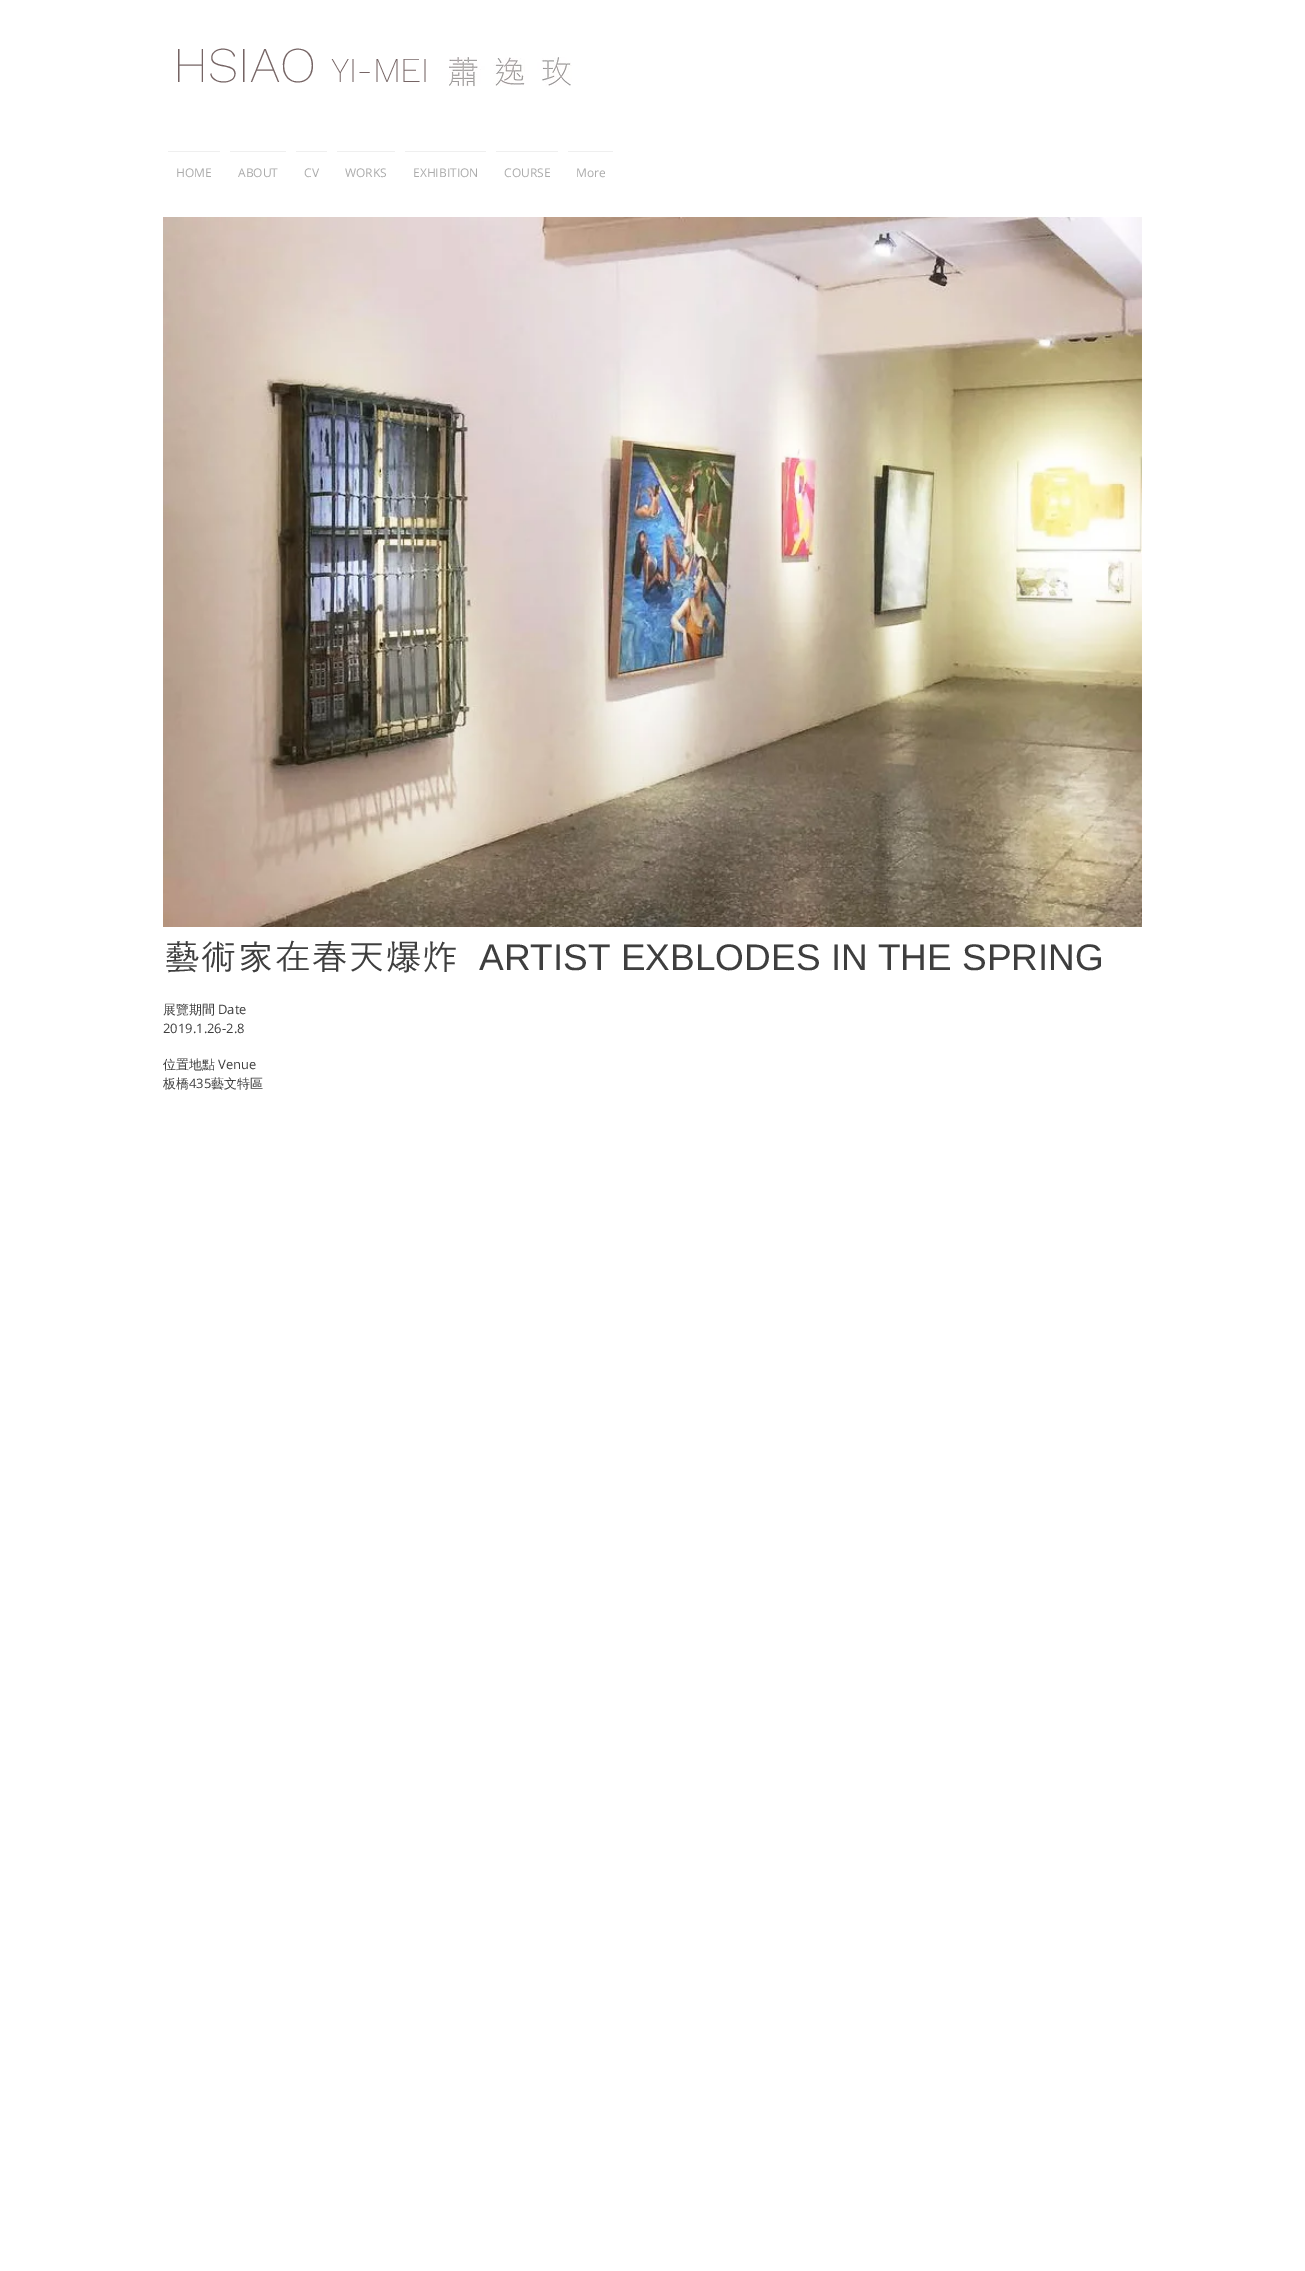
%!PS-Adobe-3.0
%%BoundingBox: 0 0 1305 2271
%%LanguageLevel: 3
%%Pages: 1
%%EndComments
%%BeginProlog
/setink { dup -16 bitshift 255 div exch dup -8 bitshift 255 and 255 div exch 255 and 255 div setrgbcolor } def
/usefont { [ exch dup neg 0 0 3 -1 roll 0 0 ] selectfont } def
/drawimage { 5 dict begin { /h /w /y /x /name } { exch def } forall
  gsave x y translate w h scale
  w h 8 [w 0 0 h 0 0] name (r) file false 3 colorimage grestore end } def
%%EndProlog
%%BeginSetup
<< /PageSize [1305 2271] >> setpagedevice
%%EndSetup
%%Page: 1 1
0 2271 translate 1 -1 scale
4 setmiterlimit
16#FFFFFF setink
0 0 1305 2271 rectfill
/WorkSans-ExtraLight 50 usefont
16#756464 setink
173 82 moveto (HSIAO) show
/WorkSans-ExtraLight 35 usefont
331 82 moveto (YI-MEI) show
(img1.raw) 449 57 123 30 drawimage
16#EFEFEF setink
168 151 52 1 rectfill
/OpenSans-Regular 12 usefont
16#ABABAB setink
176 177 moveto (HOME) show
16#EFEFEF setink
230 151 56 1 rectfill
16#ABABAB setink
238 177 moveto (ABOUT) show
16#EFEFEF setink
296 151 31 1 rectfill
16#ABABAB setink
304 177 moveto (CV) show
16#EFEFEF setink
337 151 58 1 rectfill
16#ABABAB setink
345 177 moveto (WORKS) show
16#EFEFEF setink
405 151 81 1 rectfill
16#ABABAB setink
413 177 moveto (EXHIBITION) show
16#EFEFEF setink
496 151 62 1 rectfill
16#ABABAB setink
504 177 moveto (COURSE) show
16#EFEFEF setink
568 151 45 1 rectfill
16#ABABAB setink
576 177 moveto (More) show
(img2.raw) 163 217 979 710 drawimage
/Dotum-Regular 37 usefont
16#3E3E3E setink
163 970 moveto (藝術家在春天爆炸) show
/LiberationSans-Regular 37 usefont
479 970 moveto (ARTIST EXBLODES IN THE SPRING) show
/WenQuanYiZenHei-Medium 13 usefont
163 1014 moveto (展覽期間) show
/OpenSans-Regular 13 usefont
218 1014 moveto (Date) show
163 1033 moveto (2019.1.26-2.8) show
/WenQuanYiZenHei-Medium 13 usefont
163 1069 moveto (位置地點) show
/OpenSans-Regular 13 usefont
218 1069 moveto (Venue) show
/WenQuanYiZenHei-Medium 13 usefont
163 1088 moveto (板橋) show
/OpenSans-Regular 13 usefont
189 1088 moveto (435) show
/WenQuanYiZenHei-Medium 13 usefont
211 1088 moveto (藝文特區) show
showpage
%%EOF
